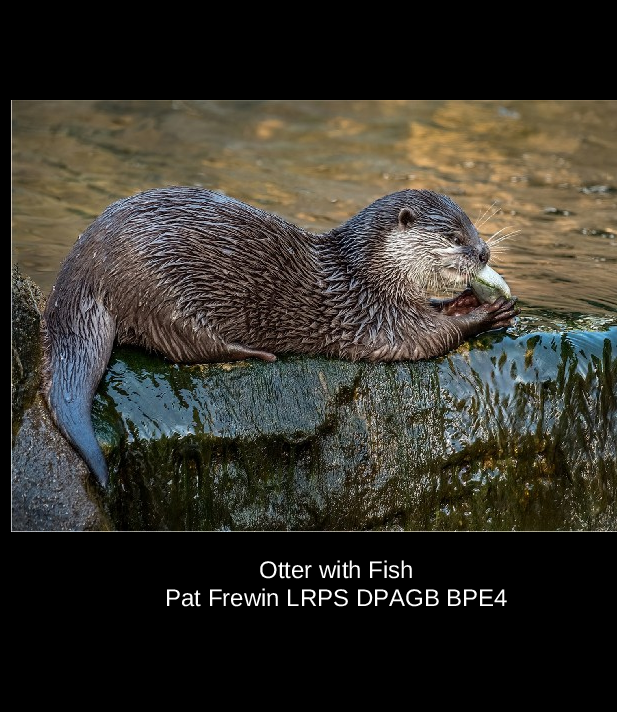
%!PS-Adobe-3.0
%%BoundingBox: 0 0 617 712
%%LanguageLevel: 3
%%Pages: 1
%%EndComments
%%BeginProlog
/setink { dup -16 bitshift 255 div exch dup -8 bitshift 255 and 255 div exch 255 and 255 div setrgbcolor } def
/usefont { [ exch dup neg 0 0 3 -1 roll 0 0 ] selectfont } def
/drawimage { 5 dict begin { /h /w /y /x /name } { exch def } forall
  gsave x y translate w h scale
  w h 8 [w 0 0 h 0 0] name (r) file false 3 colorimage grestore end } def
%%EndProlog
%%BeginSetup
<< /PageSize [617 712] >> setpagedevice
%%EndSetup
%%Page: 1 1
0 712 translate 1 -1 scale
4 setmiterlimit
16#000000 setink
0 0 617 712 rectfill
(img1.raw) 11 100 606 432 drawimage
/LiberationSans-Regular 24 usefont
16#FFFFFF setink
259 578 moveto (Otter with Fish) show
165 606 moveto (Pat Frewin LRPS DPAGB BPE4) show
showpage
%%EOF
